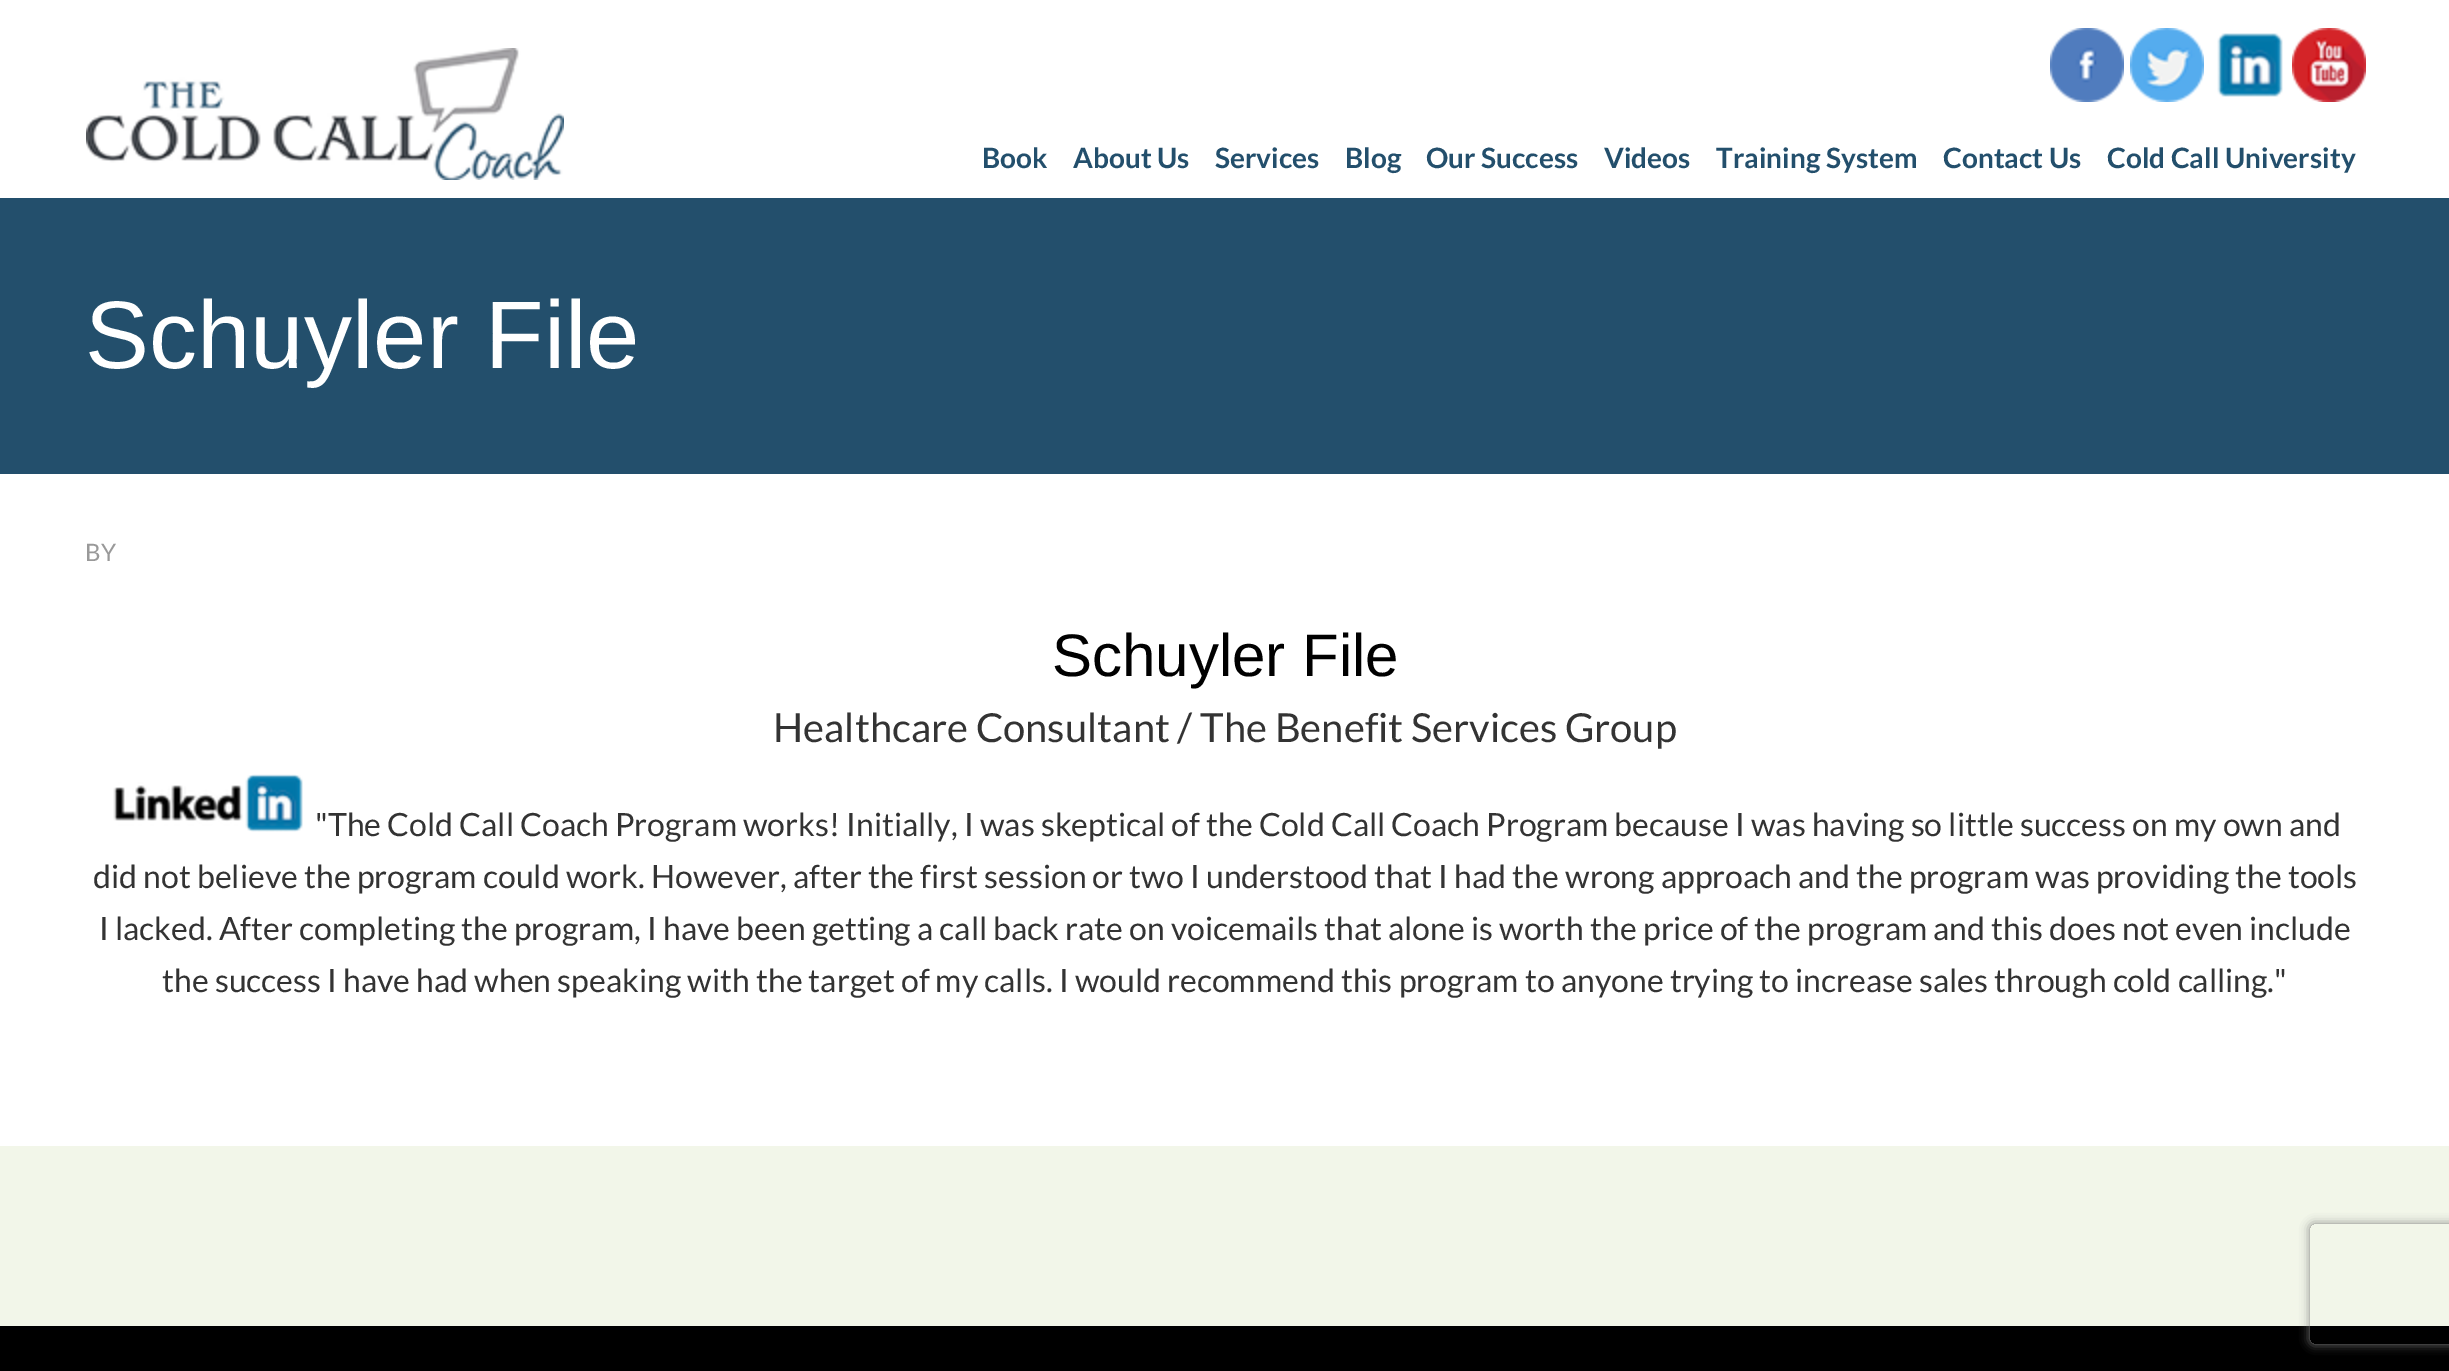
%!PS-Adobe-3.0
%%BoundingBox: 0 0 2449 1371
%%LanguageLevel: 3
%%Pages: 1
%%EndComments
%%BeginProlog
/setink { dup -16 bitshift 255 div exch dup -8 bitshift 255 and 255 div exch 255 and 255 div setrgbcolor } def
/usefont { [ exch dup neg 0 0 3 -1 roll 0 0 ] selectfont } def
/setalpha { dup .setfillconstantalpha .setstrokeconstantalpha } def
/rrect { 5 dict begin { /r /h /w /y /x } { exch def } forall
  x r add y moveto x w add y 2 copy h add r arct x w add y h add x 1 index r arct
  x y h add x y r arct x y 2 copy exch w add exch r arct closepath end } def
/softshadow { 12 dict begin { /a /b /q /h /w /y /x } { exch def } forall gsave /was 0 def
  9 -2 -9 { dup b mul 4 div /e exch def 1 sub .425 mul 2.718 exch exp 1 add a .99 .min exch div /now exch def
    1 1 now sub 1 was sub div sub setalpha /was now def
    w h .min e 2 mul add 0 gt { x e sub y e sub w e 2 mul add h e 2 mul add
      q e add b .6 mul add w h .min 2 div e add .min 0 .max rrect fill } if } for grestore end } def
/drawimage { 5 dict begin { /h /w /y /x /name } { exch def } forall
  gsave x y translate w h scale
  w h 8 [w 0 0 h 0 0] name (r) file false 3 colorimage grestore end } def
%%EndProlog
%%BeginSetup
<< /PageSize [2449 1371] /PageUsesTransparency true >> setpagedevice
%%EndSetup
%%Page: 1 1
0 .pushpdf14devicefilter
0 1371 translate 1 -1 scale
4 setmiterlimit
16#FFFFFF setink
0 0 2449 1371 rectfill
(img1.raw) 86 48 478 132 drawimage
(img2.raw) 2050 28 74 74 drawimage
(img3.raw) 2130 28 74 74 drawimage
(img4.raw) 2217 33 66 64 drawimage
(img5.raw) 2292 28 74 74 drawimage
/Lato-Bold 28 usefont
16#234F6C setink
[
    [(Book) 982 168]
    [(About Us) 1073 168]
    [(Services) 1215 168]
    [(Blog) 1345 168]
    [(Our Success) 1426 168]
    [(Videos) 1604 168]
    [(Training System) 1716 168]
    [(Contact Us) 1943 168]
    [(Cold Call University) 2107 168]
] { aload pop moveto show } forall
0 198 2449 276 rectfill
/LiberationSans-Regular 96 usefont
16#FFFFFF setink
85 368 moveto (Schuyler File) show
/Lato-Regular 24 usefont
16#999999 setink
85 561 moveto (BY) show
/LiberationSans-Regular 60 usefont
16#000000 setink
1052 676 moveto (Schuyler File) show
/Lato-Regular 40 usefont
16#333333 setink
773 742 moveto (Healthcare Consultant / The Benefit Services Group) show
(img6.raw) 113 774 190 58 drawimage
/Lato-Regular 32 usefont
[
    [("The Cold Call Coach Program works! Initially, I was skeptical of the Cold Call Coach Program because I was having so little success on my own and) 315 836]
    [(did not believe the program could work. However, after the first session or two I understood that I had the wrong approach and the program was providing the tools) 93 888]
    [(I lacked. After completing the program, I have been getting a call back rate on voicemails that alone is worth the price of the program and this does not even include) 99 940]
    [(the success I have had when speaking with the target of my calls. I would recommend this program to anyone trying to increase sales through cold calling.") 162 992]
] { aload pop moveto show } forall
16#F2F6E9 setink
0 1146 2449 180 rectfill
16#000000 setink
0 1326 2449 45 rectfill
gsave
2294 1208 moveto 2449 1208 lineto 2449 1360 lineto 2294 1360 lineto closepath 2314 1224 moveto 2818 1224 lineto 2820 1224 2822 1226 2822 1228 curveto 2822 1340 lineto 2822 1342 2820 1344 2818 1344 curveto 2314 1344 lineto 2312 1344 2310 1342 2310 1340 curveto 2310 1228 lineto 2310 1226 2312 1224 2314 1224 curveto closepath eoclip newpath
16#808080 setink
2310 1224 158 120 4 5 1 softshadow
grestore
.poppdf14devicefilter showpage
%%EOF
